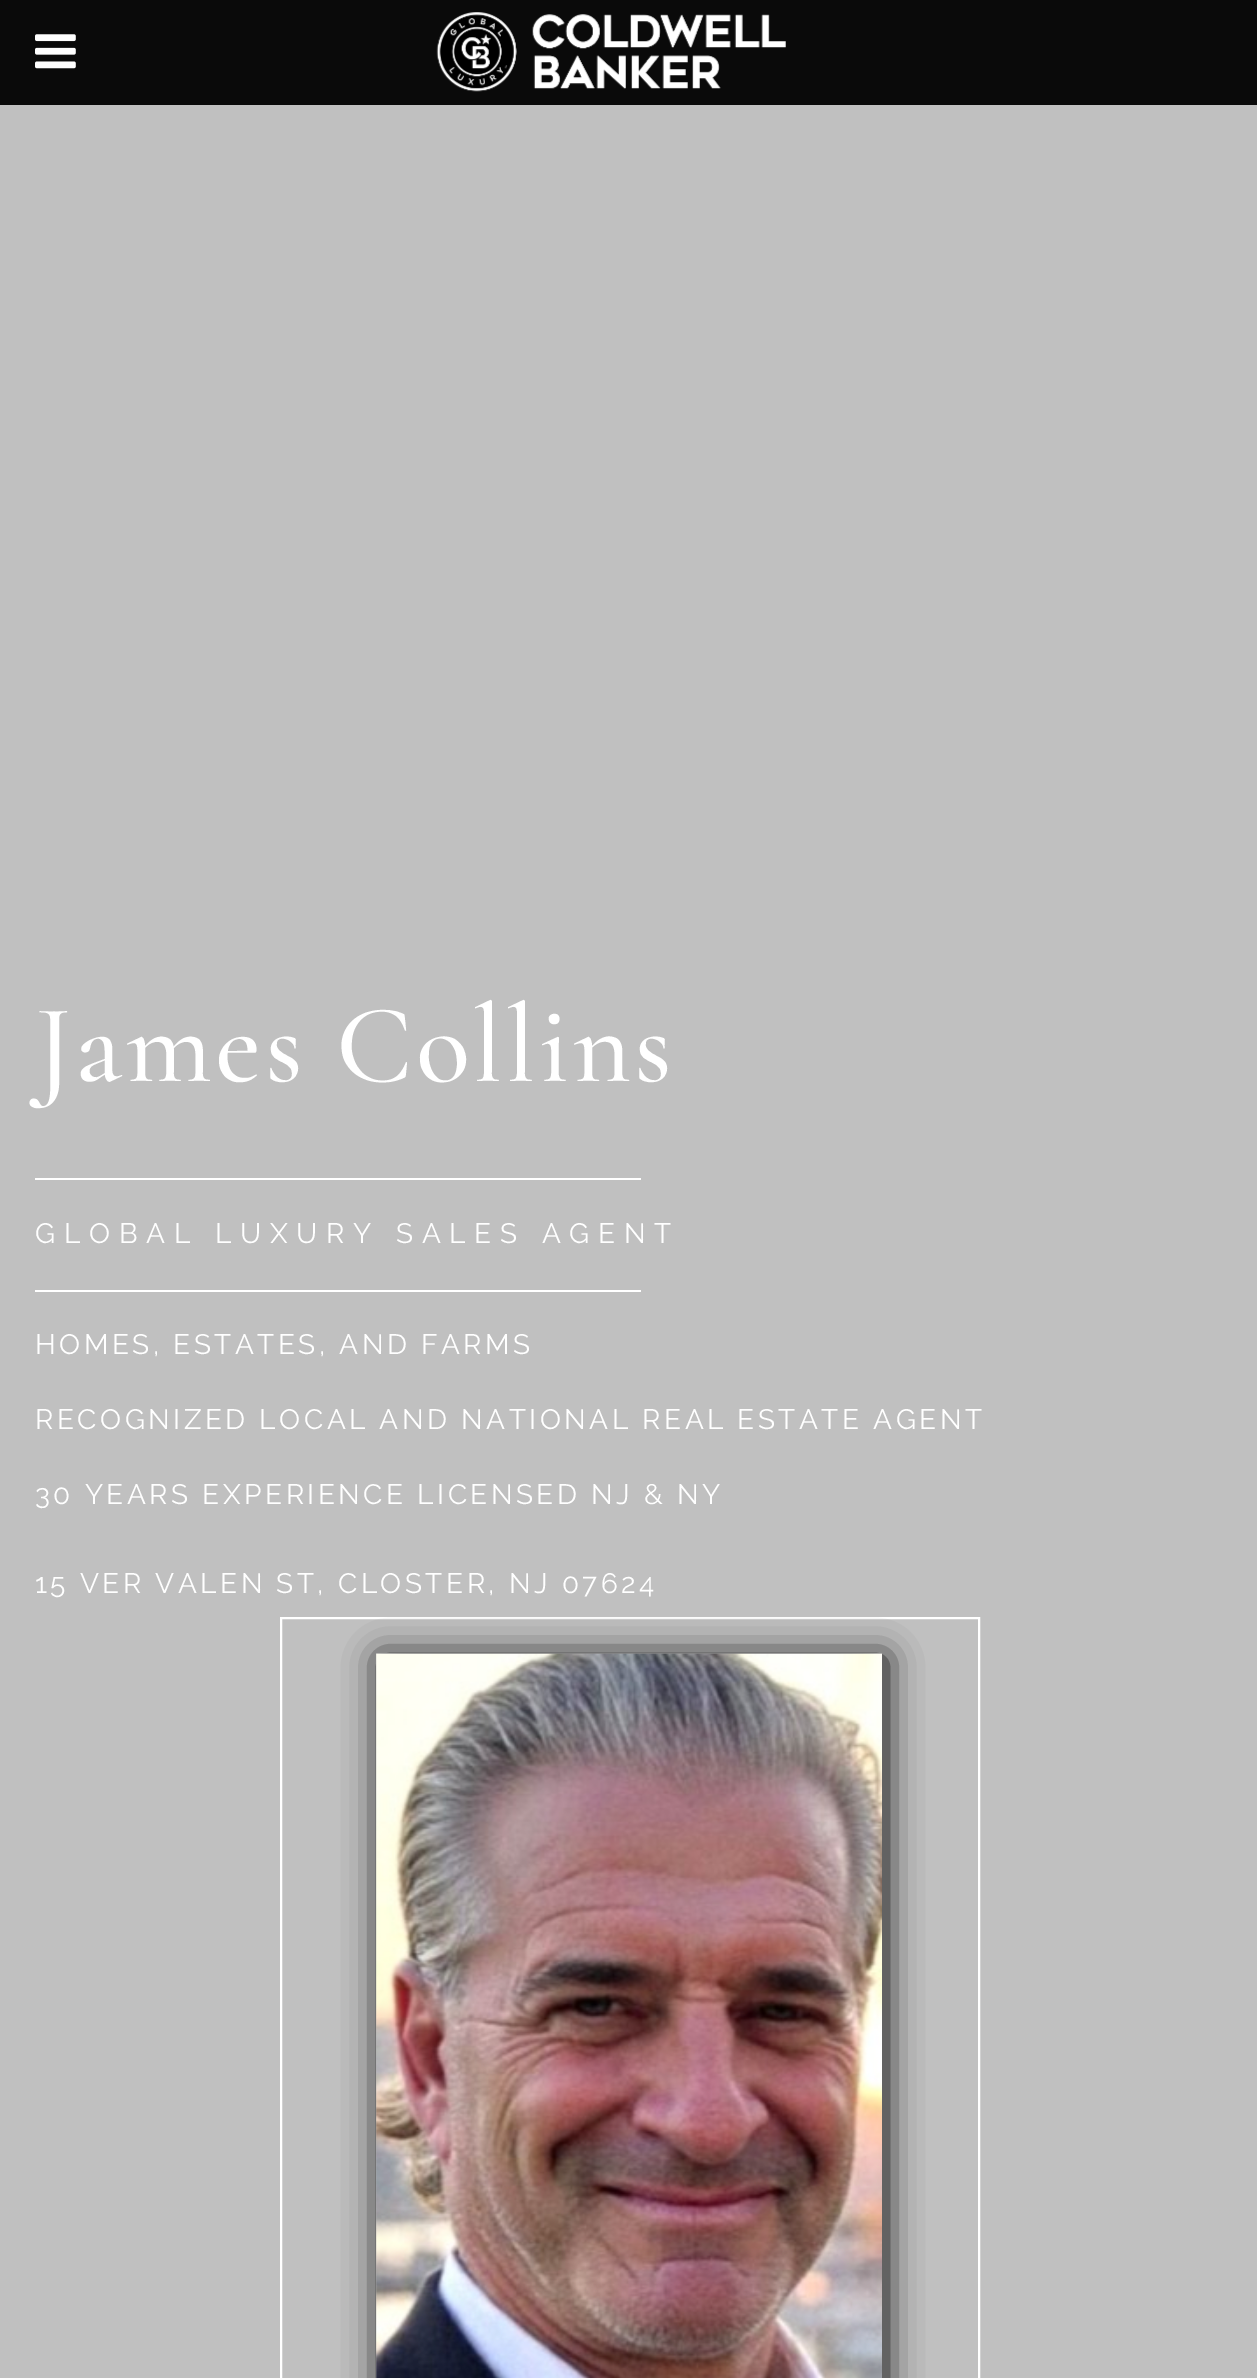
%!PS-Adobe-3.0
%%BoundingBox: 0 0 1257 2378
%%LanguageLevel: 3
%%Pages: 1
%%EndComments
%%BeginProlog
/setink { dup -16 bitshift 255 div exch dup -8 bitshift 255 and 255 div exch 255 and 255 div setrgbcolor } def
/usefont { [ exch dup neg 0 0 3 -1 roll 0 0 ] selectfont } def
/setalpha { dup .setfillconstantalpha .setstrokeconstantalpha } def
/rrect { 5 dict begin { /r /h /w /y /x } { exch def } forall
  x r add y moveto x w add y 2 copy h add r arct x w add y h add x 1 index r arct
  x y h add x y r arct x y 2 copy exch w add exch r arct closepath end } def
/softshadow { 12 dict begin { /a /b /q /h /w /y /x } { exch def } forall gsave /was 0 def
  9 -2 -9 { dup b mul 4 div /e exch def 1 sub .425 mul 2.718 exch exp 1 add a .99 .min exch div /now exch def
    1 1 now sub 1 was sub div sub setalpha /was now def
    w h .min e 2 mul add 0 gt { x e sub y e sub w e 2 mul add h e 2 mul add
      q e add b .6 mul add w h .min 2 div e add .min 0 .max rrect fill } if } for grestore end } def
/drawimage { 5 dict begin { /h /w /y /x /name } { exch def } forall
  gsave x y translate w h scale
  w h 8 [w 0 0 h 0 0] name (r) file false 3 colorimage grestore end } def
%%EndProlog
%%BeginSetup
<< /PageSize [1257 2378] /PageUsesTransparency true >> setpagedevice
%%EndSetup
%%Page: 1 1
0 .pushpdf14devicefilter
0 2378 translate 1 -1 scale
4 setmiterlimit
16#C0C0C0 setink
0 0 1257 2378 rectfill
16#0A0A0A setink
0 0 1257 105 rectfill
(img1.raw) 35 34 41 35 drawimage
(img2.raw) 436 12 350 80 drawimage
/CormorantGaramond-Medium 112 usefont
16#FFFFFF setink
35 1081 moveto 3.5 0 (James Collins) ashow
35 1178 606 2 rectfill
/Raleway-Regular 28 usefont
35 1243 moveto 8.75 0 (GLOBAL LUXURY SALES AGENT) ashow
35 1290 606 2 rectfill
35 1354 moveto 3.5 0 (HOMES, ESTATES, AND FARMS) ashow
35 1429 moveto 3.5 0 (RECOGNIZED LOCAL AND NATIONAL REAL ESTATE AGENT) ashow
35 1504 moveto 3.5 0 (30 YEARS EXPERIENCE LICENSED NJ & NY) ashow
35 1593 moveto 3.5 0 (15 VER VALEN ST, CLOSTER, NJ 07624) ashow
2 setlinewidth
281 1618 698 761 rectstroke
16#000000 setink
380 1657 506 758 0 17.5 1 softshadow
(img3.raw) 376 1653 506 725 drawimage
.poppdf14devicefilter showpage
%%EOF
